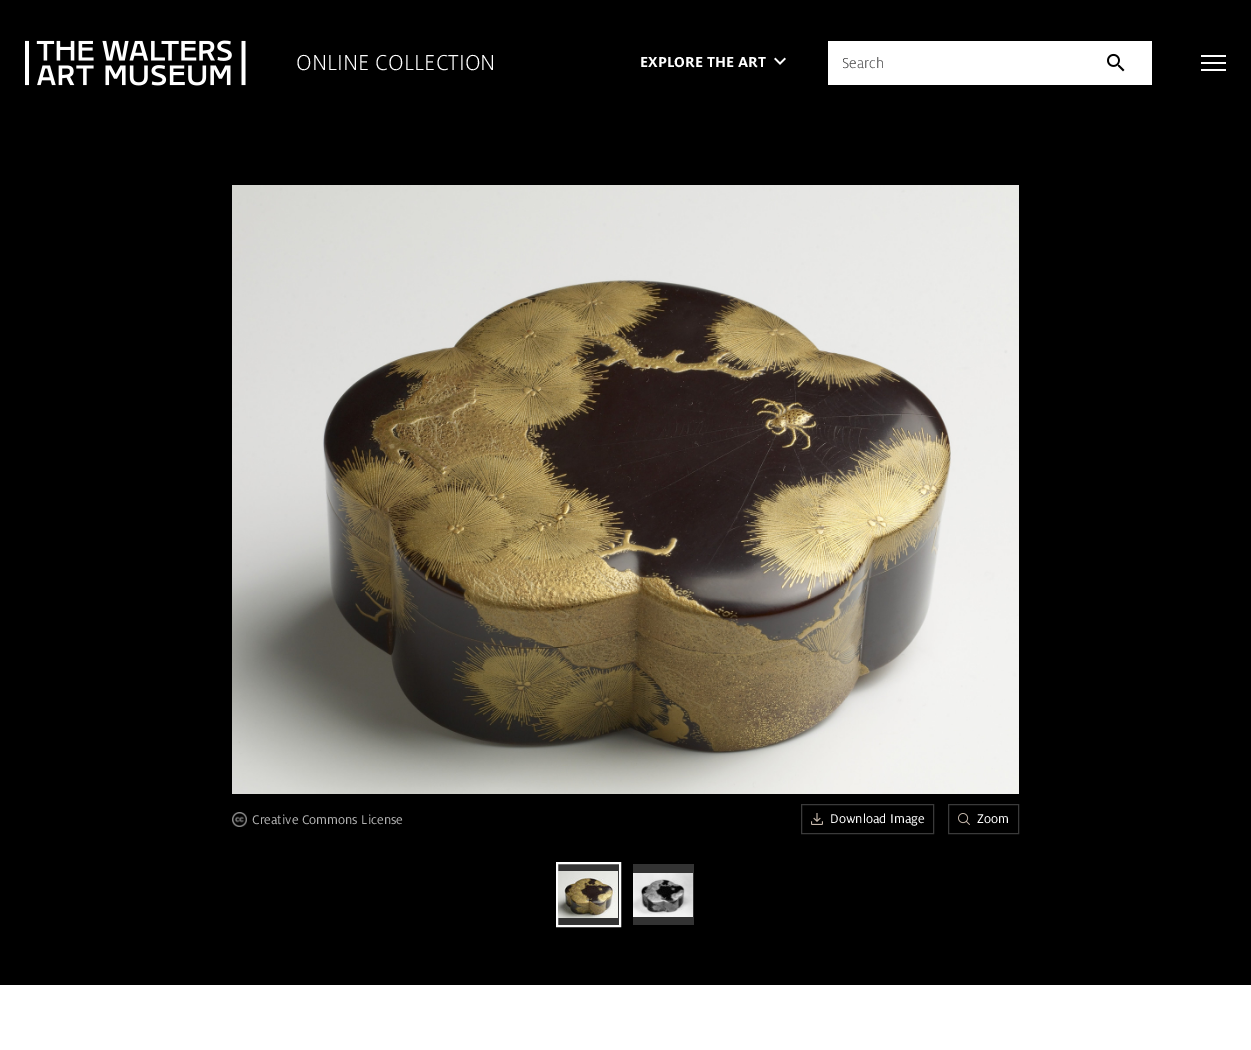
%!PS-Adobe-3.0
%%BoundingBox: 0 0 1251 1050
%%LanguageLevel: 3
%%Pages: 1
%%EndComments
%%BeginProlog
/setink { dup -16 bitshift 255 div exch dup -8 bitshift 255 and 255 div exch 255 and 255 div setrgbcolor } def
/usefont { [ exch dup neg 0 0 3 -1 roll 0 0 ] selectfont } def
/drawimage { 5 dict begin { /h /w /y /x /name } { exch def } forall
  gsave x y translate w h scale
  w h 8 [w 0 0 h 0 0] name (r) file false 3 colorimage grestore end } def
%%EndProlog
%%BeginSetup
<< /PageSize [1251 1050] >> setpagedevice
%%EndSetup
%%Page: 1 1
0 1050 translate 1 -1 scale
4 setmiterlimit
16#FFFFFF setink
0 0 1251 1050 rectfill
16#000000 setink
0 0 1251 985 rectfill
(img1.raw) 25 40 221 46 drawimage
/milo-Light 24 usefont
16#FFFFFF setink
296 70 moveto (ONLINE COLLECTION) show
/milo-Bold 16 usefont
640 67 moveto (EXPLORE THE ART) show
(img2.raw) 774 57 12 8 drawimage
828 41 324 44 rectfill
/milo-Light 16 usefont
16#424243 setink
842 68 moveto (Search) show
(img3.raw) 1107 53 18 19 drawimage
[
    [1201 55 25 2 16#FFFFFF]
    [1201 62 25 2 16#FFFFFF]
    [1201 69 25 2 16#FFFFFF]
] { aload pop setink rectfill } forall
(img4.raw) 232 185 787 609 drawimage
(img5.raw) 232 812 15 15 drawimage
/milo-Regular 14 usefont
16#B3B3B3 setink
252 824 moveto (Creative Commons License) show
16#3A3A3A setink
801.5 804.5 132 29 rectstroke
(img6.raw) 811 813 12 12 drawimage
16#FFFFFF setink
830 823 moveto (Download Image) show
16#3A3A3A setink
948.5 804.5 70 29 rectstroke
(img7.raw) 958 813 12 12 drawimage
16#FFFFFF setink
977 823 moveto (Zoom) show
16#333333 setink
557 863 moveto 620 863 lineto 620 926 lineto 557 926 lineto closepath gsave fill grestore
16#FFFFFF setink
2 setlinewidth
stroke
(img8.raw) 558 871 60 47 drawimage
16#333333 setink
633 864 61 61 rectfill
(img9.raw) 633 873 60 44 drawimage
showpage
%%EOF
